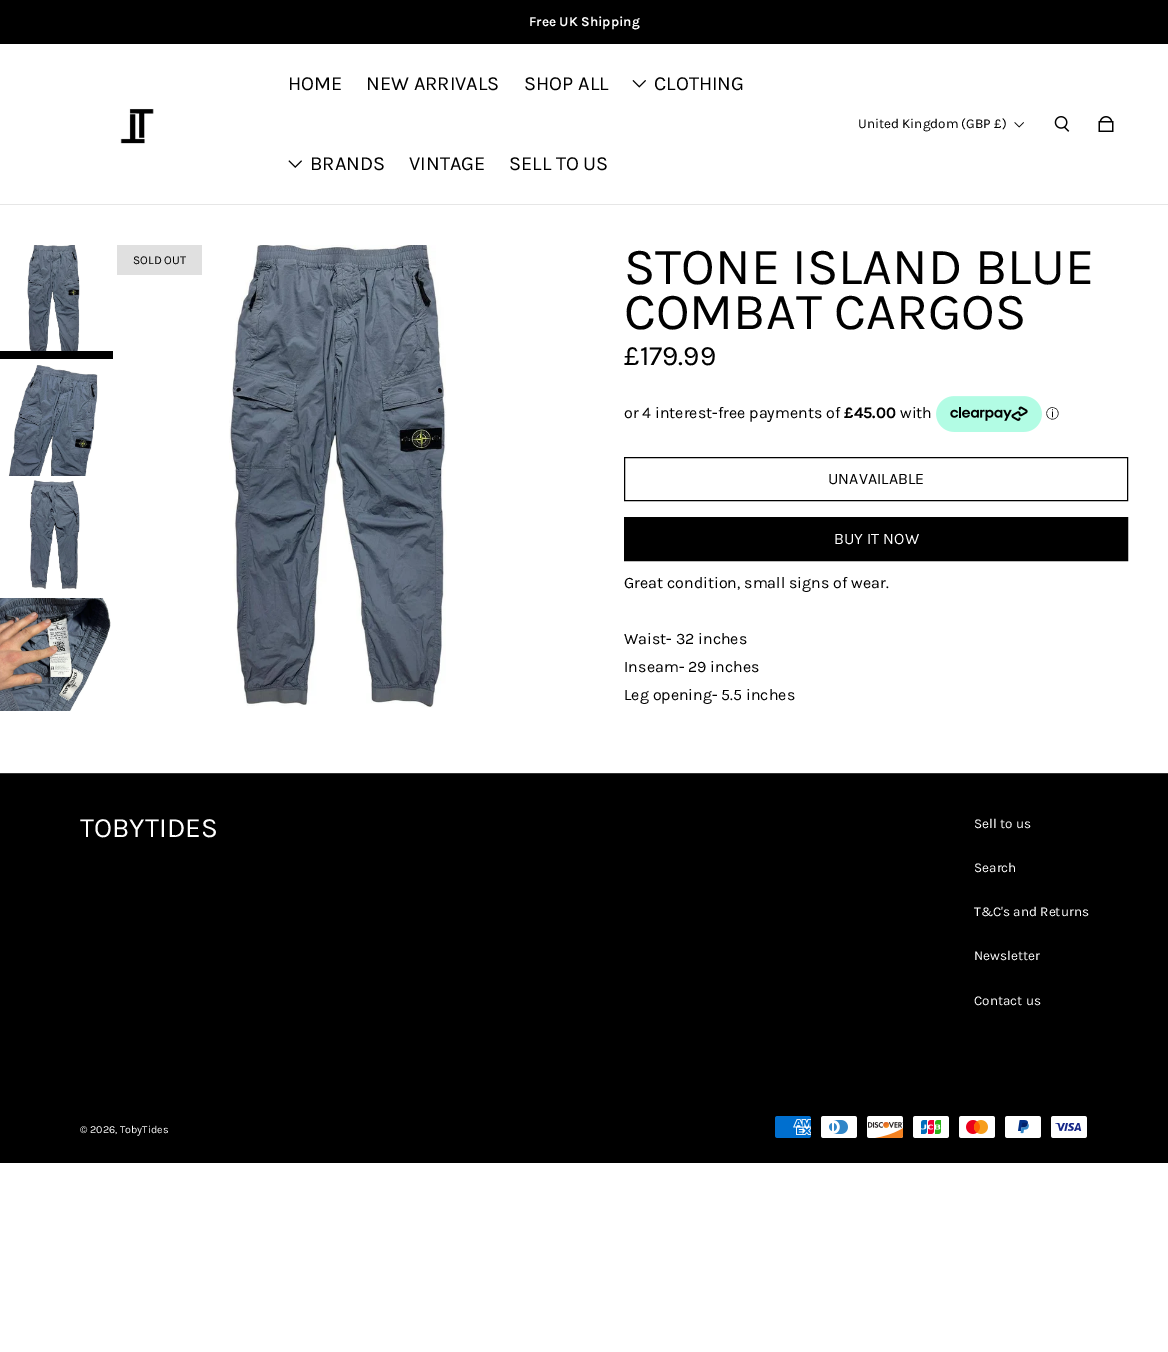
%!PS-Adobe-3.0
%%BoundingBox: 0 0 1168 1352
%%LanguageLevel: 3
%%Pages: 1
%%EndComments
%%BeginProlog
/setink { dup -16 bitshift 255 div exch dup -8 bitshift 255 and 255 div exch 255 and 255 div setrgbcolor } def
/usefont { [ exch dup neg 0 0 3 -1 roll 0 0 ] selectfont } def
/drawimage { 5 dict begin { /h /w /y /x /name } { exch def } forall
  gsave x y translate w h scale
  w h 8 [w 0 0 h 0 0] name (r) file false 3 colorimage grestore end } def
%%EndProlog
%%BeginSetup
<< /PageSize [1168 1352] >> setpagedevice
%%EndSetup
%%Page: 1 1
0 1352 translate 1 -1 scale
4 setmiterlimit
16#FFFFFF setink
0 0 1168 1352 rectfill
16#000000 setink
0 0 1168 44 rectfill
/Karla-Bold 13.5 usefont
16#FFFFFF setink
529 26 moveto (Free UK Shipping) show
16#E6E6E6 setink
0 204 1168 1 rectfill
(img1.raw) 120 108 34 36 drawimage
/Karla-Regular 20 usefont
16#000000 setink
[
    [(HOME) 288 90]
    [(NEW ARRIVALS) 366 90]
    [(SHOP ALL) 524 90]
] { aload pop moveto show } forall
(img2.raw) 632 80 14 8 drawimage
654 90 moveto (CLOTHING) show
(img3.raw) 288 160 14 8 drawimage
[
    [(BRANDS) 310 170]
    [(VINTAGE) 409 170]
    [(SELL TO US) 509 170]
] { aload pop moveto show } forall
/Karla-Regular 13.5 usefont
858 128 moveto (United Kingdom \(GBP £\)) show
(img4.raw) 1014 122 10 6 drawimage
(img5.raw) 1054 116 16 16 drawimage
(img6.raw) 1098 116 16 16 drawimage
(img7.raw) 27 245 53 106 drawimage
0 351 113 8 rectfill
(img8.raw) 8 365 90 111 drawimage
(img9.raw) 29 480 51 109 drawimage
(img10.raw) 0 598 111 113 drawimage
16#E0E0E0 setink
117 245 85 30 rectfill
/Karla-Regular 12 usefont
16#000000 setink
133 264 moveto (SOLD OUT) show
(img11.raw) 229 245 218 463 drawimage
/Karla-Regular 52 usefont
624 284 moveto (STONE ISLAND BLUE) show
624 329 moveto (COMBAT CARGOS) show
/Karla-Regular 28 usefont
624 365 moveto (£179.99) show
/Karla-Regular 16 usefont
624 418 moveto (or 4 interest-free payments of) show
/Karla-Bold 16 usefont
844 418 moveto (£45.00) show
/Karla-Regular 16 usefont
900 418 moveto (with) show
(img12.raw) 936 396 106 36 drawimage
/WenQuanYiZenHei-Medium 13 usefont
1046 418 moveto (ⓘ) show
624.5 457.5 503 43 rectstroke
/Karla-Regular 16 usefont
828 484 moveto (UNAVAILABLE) show
624.5 517.5 503 43 rectstroke
625 518 502 42 rectfill
16#FFFFFF setink
834 544 moveto (BUY IT NOW) show
16#000000 setink
[
    [(Great condition, small signs of wear.) 624 588]
    [(Waist- 32 inches) 624 644]
    [(Inseam- 29 inches) 624 672]
    [(Leg opening- 5.5 inches) 624 700]
] { aload pop moveto show } forall
0 774 1168 389 rectfill
16#333333 setink
0 773 1168 1 rectfill
/Karla-Regular 28 usefont
16#FFFFFF setink
80 837 moveto (TOBYTIDES) show
/Karla-Regular 13.5 usefont
[
    [(Sell to us) 974 828]
    [(Search) 974 872]
    [(T&C's and Returns) 974 916]
    [(Newsletter) 974 960]
    [(Contact us) 974 1005]
] { aload pop moveto show } forall
/Karla-Regular 10.75 usefont
80 1133 moveto (© 2026, TobyTides) show
(img13.raw) 775 1116 36 22 drawimage
(img14.raw) 821 1116 36 22 drawimage
(img15.raw) 867 1116 37 22 drawimage
(img16.raw) 913 1116 36 22 drawimage
(img17.raw) 959 1116 36 22 drawimage
(img18.raw) 1005 1116 36 22 drawimage
(img19.raw) 1051 1116 36 22 drawimage
showpage
%%EOF
